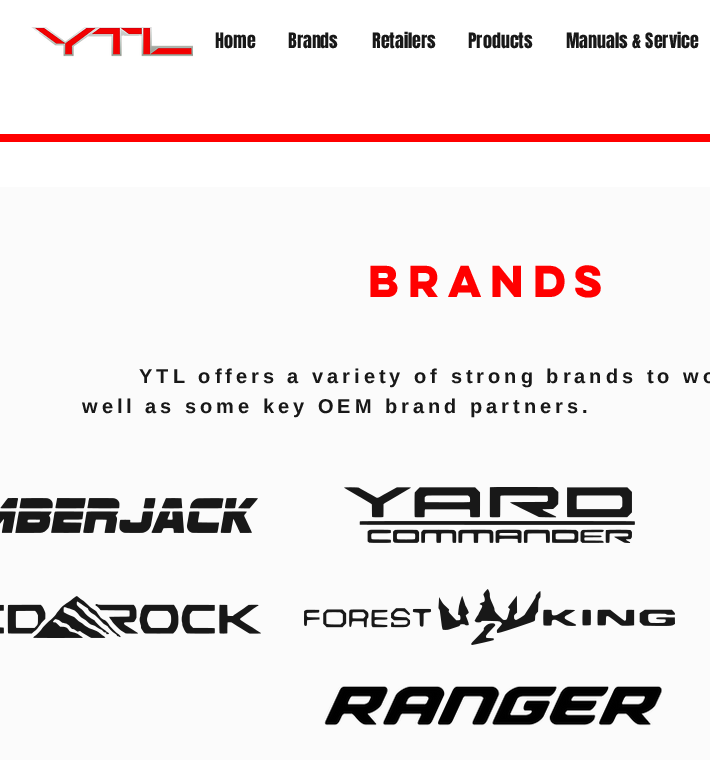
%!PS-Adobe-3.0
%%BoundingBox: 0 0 710 760
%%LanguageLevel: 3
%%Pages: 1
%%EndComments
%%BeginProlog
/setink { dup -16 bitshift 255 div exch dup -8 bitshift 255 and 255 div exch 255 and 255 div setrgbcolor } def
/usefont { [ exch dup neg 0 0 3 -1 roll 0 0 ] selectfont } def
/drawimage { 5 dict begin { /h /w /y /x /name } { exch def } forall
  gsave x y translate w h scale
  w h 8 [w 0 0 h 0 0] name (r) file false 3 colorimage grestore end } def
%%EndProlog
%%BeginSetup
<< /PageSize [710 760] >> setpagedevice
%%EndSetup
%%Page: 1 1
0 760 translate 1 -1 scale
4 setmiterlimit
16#FFFFFF setink
0 0 710 760 rectfill
(img1.raw) 31 27 162 30 drawimage
/Anton-Regular 18 usefont
16#181818 setink
[
    [(Home) 215 48]
    [(Brands) 288 48]
    [(Retailers) 372 48]
    [(Products) 468 48]
    [(Manuals & Service) 566 48]
] { aload pop moveto show } forall
16#FF0000 setink
0 134 710 8 rectfill
16#FBFBFB setink
0 187 710 573 rectfill
/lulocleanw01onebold-Bold 40 usefont
16#FF0000 setink
368 297 moveto (BRANDS) show
/LiberationSans-Bold 20 usefont
16#181818 setink
139 383 moveto 4 0 (YTL offers a variety of strong brands to wo) ashow
82 413 moveto 4 0 (well as some key OEM brand partners.) ashow
(img2.raw) 0 498 258 35 drawimage
(img3.raw) 344 487 291 56 drawimage
(img4.raw) 0 596 261 42 drawimage
(img5.raw) 304 589 371 56 drawimage
(img6.raw) 324 686 338 40 drawimage
showpage
%%EOF
